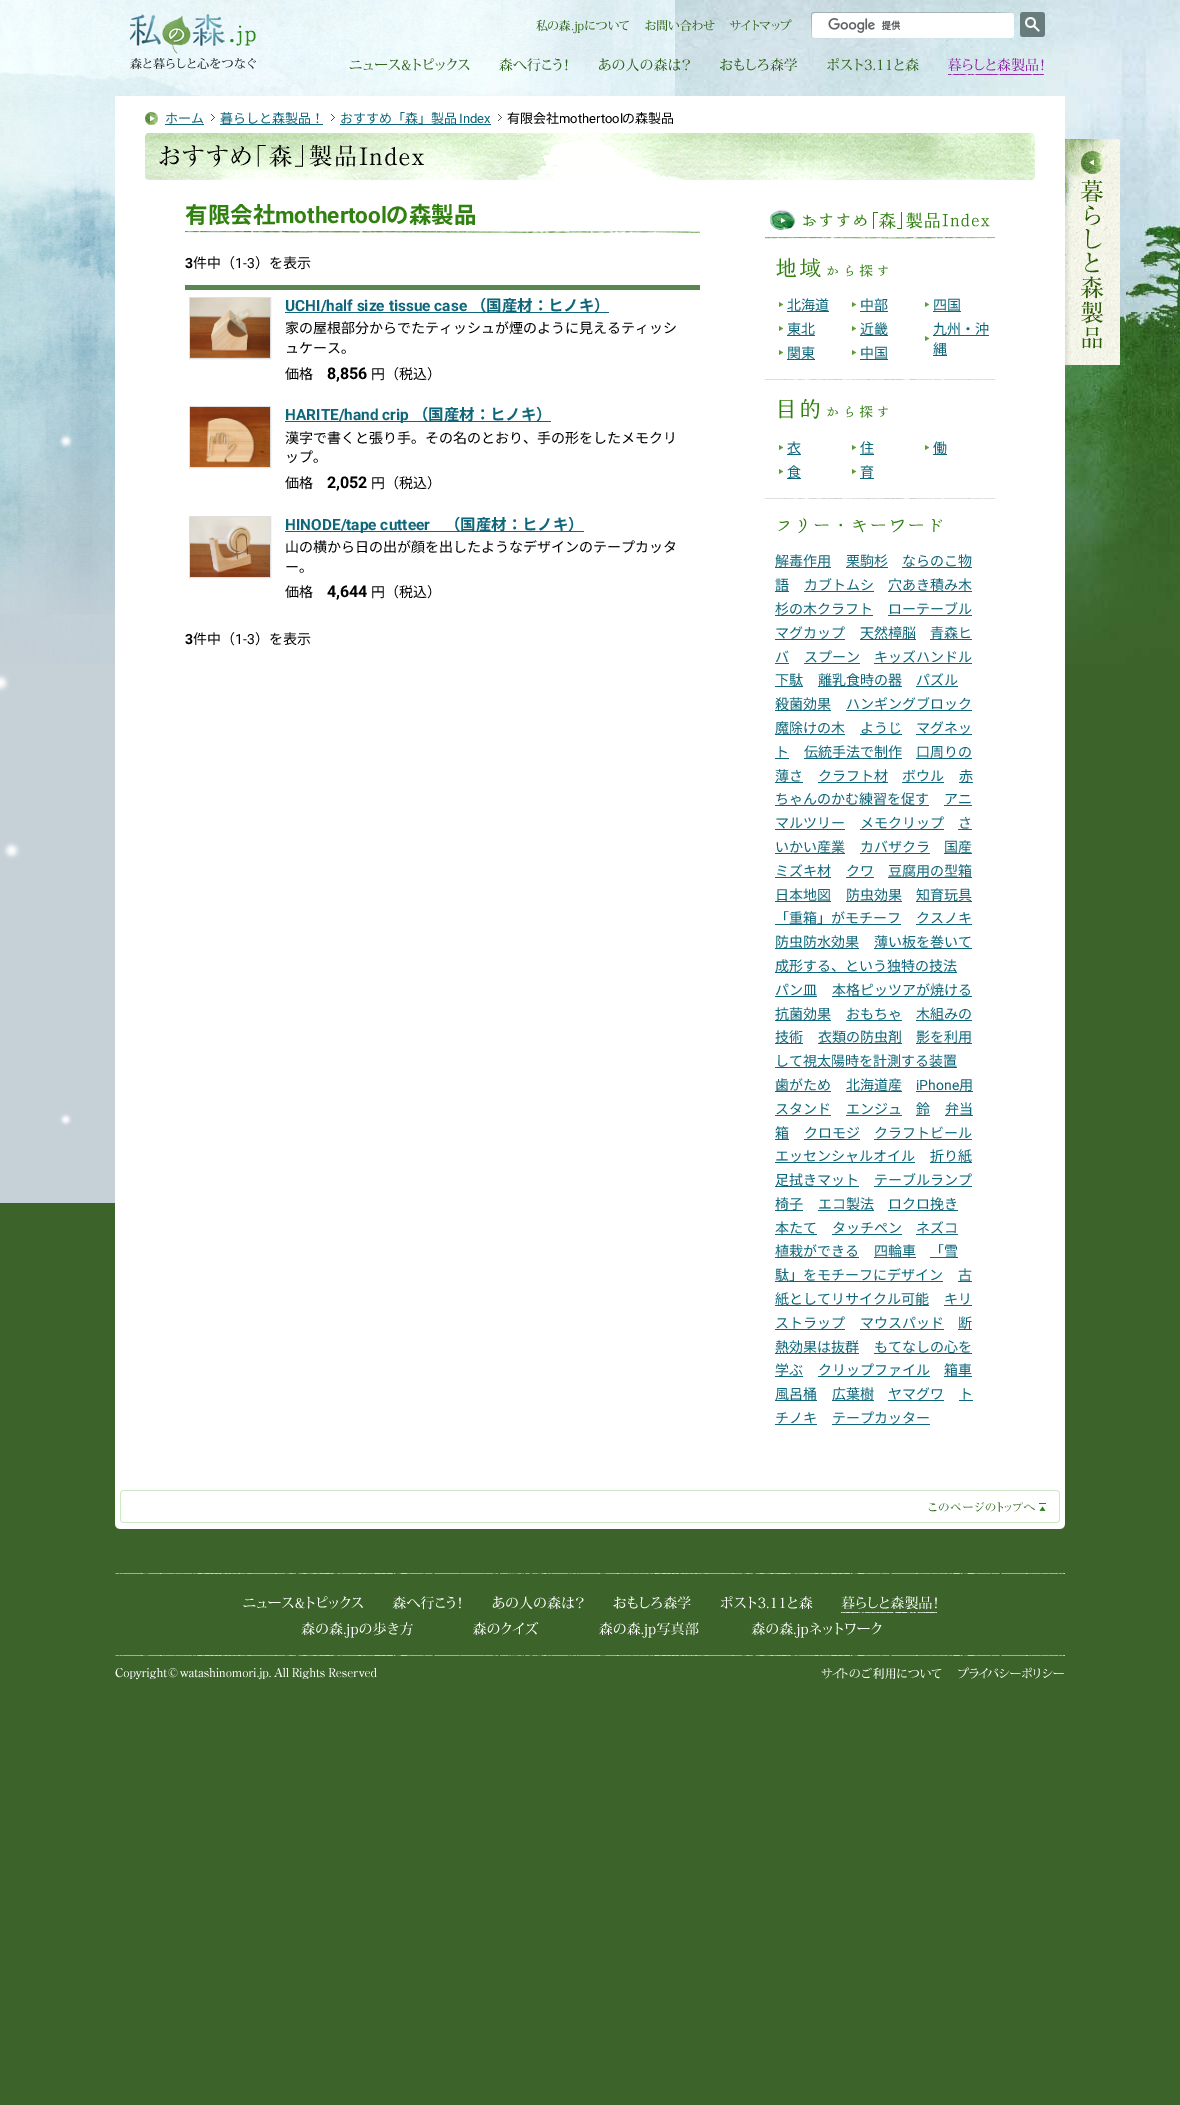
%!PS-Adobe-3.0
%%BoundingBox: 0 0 1180 2105
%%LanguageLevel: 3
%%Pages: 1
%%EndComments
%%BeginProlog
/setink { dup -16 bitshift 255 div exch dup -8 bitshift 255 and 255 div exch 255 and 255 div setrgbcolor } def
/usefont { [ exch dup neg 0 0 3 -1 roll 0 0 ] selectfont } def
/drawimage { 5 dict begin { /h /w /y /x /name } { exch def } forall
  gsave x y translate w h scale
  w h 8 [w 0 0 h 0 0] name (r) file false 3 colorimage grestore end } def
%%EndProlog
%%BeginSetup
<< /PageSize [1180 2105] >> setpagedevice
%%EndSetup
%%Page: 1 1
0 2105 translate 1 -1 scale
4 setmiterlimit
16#3C632A setink
0 0 1180 2105 rectfill
(img1.raw) 675 0 505 664 drawimage
16#C6D0D7 setink
0 664 115 539 rectfill
(img2.raw) 0 0 675 664 drawimage
(img3.raw) 0 433 74 693 drawimage
(img4.raw) 130 14 126 56 drawimage
(img5.raw) 536 19 93 15 drawimage
(img6.raw) 645 19 70 12 drawimage
(img7.raw) 730 19 62 12 drawimage
(img8.raw) 811 12 203 26 drawimage
(img9.raw) 828 18 73 15 drawimage
(img10.raw) 1020 12 25 25 drawimage
(img11.raw) 349 58 121 13 drawimage
(img12.raw) 499 58 69 14 drawimage
(img13.raw) 599 58 91 14 drawimage
(img14.raw) 720 58 78 14 drawimage
(img15.raw) 827 58 92 14 drawimage
(img16.raw) 948 58 96 17 drawimage
16#FFFFFF setink
115 96 950 1428 rectfill
(img17.raw) 145 112 13 13 drawimage
/NotoSansJP-Regular 13 usefont
16#0D667A setink
165 123 moveto (ホーム) show
165 124 39 1 rectfill
(img18.raw) 211 114 4 7 drawimage
220 124 103 1 rectfill
220 123 moveto (暮らしと森製品！) show
(img18.raw) 331 114 4 7 drawimage
340 124 151 1 rectfill
340 123 moveto (おすすめ「森」製品) show
/Roboto-Regular 13 usefont
459 123 moveto (Index) show
(img18.raw) 498 114 4 7 drawimage
/NotoSansJP-Regular 13 usefont
16#000000 setink
507 123 moveto (有限会社) show
/Roboto-Regular 13 usefont
559 123 moveto (mothertool) show
/NotoSansJP-Regular 13 usefont
622 123 moveto (の森製品) show
(img19.raw) 145 133 890 47 drawimage
(img20.raw) 1065 139 55 226 drawimage
(img21.raw) 185 231 515 2 drawimage
/NotoSansJP-Bold 22.5 usefont
16#318111 setink
185 223 moveto (有限会社) show
/Roboto-Bold 22.5 usefont
275 223 moveto (mothertool) show
/NotoSansJP-Bold 22.5 usefont
386 223 moveto (の森製品) show
16#59854E setink
185 285 515 5 rectfill
/Roboto-Bold 14 usefont
16#000000 setink
185 268 moveto (3) show
/NotoSansJP-Regular 14 usefont
193 268 moveto (件中（) show
/Roboto-Regular 14 usefont
235 268 moveto (1-3) show
/NotoSansJP-Regular 14 usefont
255 268 moveto (）を表示) show
16#DFDFDF setink
189.5 297.5 81 61 rectstroke
(img22.raw) 190 298 80 60 drawimage
/Roboto-Bold 15.4 usefont
16#0D667A setink
285 311 moveto (UCHI/half size tissue case) show
285 312 324 1 rectfill
/NotoSansJP-Bold 15.4 usefont
471 311 moveto (（国産材：ヒノキ）) show
/NotoSansJP-Regular 14 usefont
16#000000 setink
[
    [(家の屋根部分からでたティッシュが煙のように見えるティッシ) 285 333]
    [(ュケース。) 285 353]
    [(価格) 285 379]
] { aload pop moveto show } forall
/Roboto-Bold 16 usefont
327 379 moveto (8,856) show
/NotoSansJP-Regular 14 usefont
371 379 moveto (円（税込）) show
16#DFDFDF setink
189.5 406.5 81 61 rectstroke
(img23.raw) 190 407 80 60 drawimage
16#0D667A setink
285 421 266 1 rectfill
/Roboto-Bold 15.4 usefont
285 420 moveto (HARITE/hand crip) show
/NotoSansJP-Bold 15.4 usefont
413 420 moveto (（国産材：ヒノキ）) show
/NotoSansJP-Regular 14 usefont
16#000000 setink
[
    [(漢字で書くと張り手。その名のとおり、手の形をしたメモクリ) 285 443]
    [(ップ。) 285 462]
    [(価格) 285 488]
] { aload pop moveto show } forall
/Roboto-Bold 16 usefont
327 488 moveto (2,052) show
/NotoSansJP-Regular 14 usefont
371 488 moveto (円（税込）) show
16#DFDFDF setink
189.5 516.5 81 61 rectstroke
(img24.raw) 190 517 80 60 drawimage
16#0D667A setink
285 531 299 1 rectfill
/Roboto-Bold 15.4 usefont
285 530 moveto (HINODE/tape cutteer) show
/NotoSansJP-Bold 15.4 usefont
445 530 moveto (（国産材：ヒノキ）) show
/NotoSansJP-Regular 14 usefont
16#000000 setink
[
    [(山の横から日の出が顔を出したようなデザインのテープカッタ) 285 552]
    [(ー。) 285 572]
    [(価格) 285 597]
] { aload pop moveto show } forall
/Roboto-Bold 16 usefont
327 597 moveto (4,644) show
/NotoSansJP-Regular 14 usefont
371 597 moveto (円（税込）) show
/Roboto-Bold 14 usefont
185 644 moveto (3) show
/NotoSansJP-Regular 14 usefont
193 644 moveto (件中（) show
/Roboto-Regular 14 usefont
235 644 moveto (1-3) show
/NotoSansJP-Regular 14 usefont
255 644 moveto (）を表示) show
(img25.raw) 765 209 230 30 drawimage
(img26.raw) 776 257 112 21 drawimage
(img27.raw) 779 302 4 5 drawimage
16#0D667A setink
787 311 42 1 rectfill
787 310 moveto (北海道) show
(img27.raw) 779 326 4 5 drawimage
787 335 28 1 rectfill
787 334 moveto (東北) show
(img27.raw) 779 350 4 5 drawimage
787 359 28 1 rectfill
787 358 moveto (関東) show
(img27.raw) 852 302 4 5 drawimage
860 311 28 1 rectfill
860 310 moveto (中部) show
(img27.raw) 852 326 4 5 drawimage
860 335 28 1 rectfill
860 334 moveto (近畿) show
(img27.raw) 852 350 4 5 drawimage
860 359 28 1 rectfill
860 358 moveto (中国) show
(img27.raw) 925 302 4 5 drawimage
933 311 28 1 rectfill
933 310 moveto (四国) show
(img27.raw) 925 336 4 5 drawimage
933 335 56 1 rectfill
933 334 moveto (九州・沖) show
933 355 14 1 rectfill
933 354 moveto (縄) show
(img28.raw) 765 379 230 40 drawimage
(img27.raw) 779 445 4 5 drawimage
787 454 14 1 rectfill
787 453 moveto (衣) show
(img27.raw) 779 469 4 5 drawimage
787 478 14 1 rectfill
787 477 moveto (食) show
(img27.raw) 852 445 4 5 drawimage
860 454 14 1 rectfill
860 453 moveto (住) show
(img27.raw) 852 469 4 5 drawimage
860 478 14 1 rectfill
860 477 moveto (育) show
(img27.raw) 925 445 4 5 drawimage
933 454 14 1 rectfill
933 453 moveto (働) show
(img29.raw) 765 498 230 36 drawimage
775 567 56 1 rectfill
775 566 moveto (解毒作用) show
846 567 42 1 rectfill
846 566 moveto (栗駒杉) show
902 567 70 1 rectfill
902 566 moveto (ならのこ物) show
775 591 14 1 rectfill
775 590 moveto (語) show
804 590 moveto (カブトムシ) show
804 591 70 1 rectfill
888 591 84 1 rectfill
888 590 moveto (穴あき積み木) show
775 615 98 1 rectfill
775 614 moveto (杉の木クラフト) show
888 614 moveto (ローテーブル) show
888 615 84 1 rectfill
775 639 70 1 rectfill
775 638 moveto (マグカップ) show
860 639 56 1 rectfill
860 638 moveto (天然樟脳) show
930 639 42 1 rectfill
930 638 moveto (青森ヒ) show
775 662 moveto (バ) show
775 663 14 1 rectfill
804 662 moveto (スプーン) show
804 663 56 1 rectfill
874 663 98 1 rectfill
874 662 moveto (キッズハンドル) show
775 686 28 1 rectfill
775 685 moveto (下駄) show
818 686 84 1 rectfill
818 685 moveto (離乳食時の器) show
916 685 moveto (パズル) show
916 686 42 1 rectfill
775 710 56 1 rectfill
775 709 moveto (殺菌効果) show
846 710 126 1 rectfill
846 709 moveto (ハンギングブロック) show
775 734 70 1 rectfill
775 733 moveto (魔除けの木) show
860 733 moveto (ようじ) show
860 734 42 1 rectfill
916 734 56 1 rectfill
916 733 moveto (マグネッ) show
775 757 moveto (ト) show
775 758 14 1 rectfill
804 758 98 1 rectfill
804 757 moveto (伝統手法で制作) show
916 758 56 1 rectfill
916 757 moveto (口周りの) show
775 782 28 1 rectfill
775 781 moveto (薄さ) show
818 782 70 1 rectfill
818 781 moveto (クラフト材) show
902 781 moveto (ボウル) show
902 782 42 1 rectfill
959 782 14 1 rectfill
959 781 moveto (赤) show
775 805 154 1 rectfill
775 804 moveto (ちゃんのかむ練習を促す) show
944 804 moveto (アニ) show
944 805 28 1 rectfill
775 828 moveto (マルツリー) show
775 829 70 1 rectfill
860 829 84 1 rectfill
860 828 moveto (メモクリップ) show
958 828 moveto (さ) show
958 829 14 1 rectfill
775 853 70 1 rectfill
775 852 moveto (いかい産業) show
860 852 moveto (カバザクラ) show
860 853 70 1 rectfill
944 853 28 1 rectfill
944 852 moveto (国産) show
775 877 56 1 rectfill
775 876 moveto (ミズキ材) show
846 876 moveto (クワ) show
846 877 28 1 rectfill
888 877 84 1 rectfill
888 876 moveto (豆腐用の型箱) show
775 901 56 1 rectfill
775 900 moveto (日本地図) show
846 901 56 1 rectfill
846 900 moveto (防虫効果) show
916 901 56 1 rectfill
916 900 moveto (知育玩具) show
775 924 126 1 rectfill
775 923 moveto (「重箱」がモチーフ) show
916 923 moveto (クスノキ) show
916 924 56 1 rectfill
775 948 84 1 rectfill
775 947 moveto (防虫防水効果) show
874 948 98 1 rectfill
874 947 moveto (薄い板を巻いて) show
775 972 182 1 rectfill
775 971 moveto (成形する、という独特の技法) show
775 995 moveto (パン皿) show
775 996 42 1 rectfill
832 996 140 1 rectfill
832 995 moveto (本格ピッツアが焼ける) show
775 1020 56 1 rectfill
775 1019 moveto (抗菌効果) show
846 1020 56 1 rectfill
846 1019 moveto (おもちゃ) show
916 1020 56 1 rectfill
916 1019 moveto (木組みの) show
775 1043 28 1 rectfill
775 1042 moveto (技術) show
818 1043 84 1 rectfill
818 1042 moveto (衣類の防虫剤) show
916 1043 56 1 rectfill
916 1042 moveto (影を利用) show
775 1067 182 1 rectfill
775 1066 moveto (して視太陽時を計測する装置) show
775 1091 56 1 rectfill
775 1090 moveto (歯がため) show
846 1091 56 1 rectfill
846 1090 moveto (北海道産) show
/Roboto-Regular 14 usefont
916 1090 moveto (iPhone) show
916 1091 57 1 rectfill
/NotoSansJP-Regular 14 usefont
959 1090 moveto (用) show
775 1114 moveto (スタンド) show
775 1115 56 1 rectfill
846 1114 moveto (エンジュ) show
846 1115 56 1 rectfill
916 1115 14 1 rectfill
916 1114 moveto (鈴) show
945 1115 28 1 rectfill
945 1114 moveto (弁当) show
775 1139 14 1 rectfill
775 1138 moveto (箱) show
804 1138 moveto (クロモジ) show
804 1139 56 1 rectfill
874 1138 moveto (クラフトビール) show
874 1139 98 1 rectfill
775 1162 140 1 rectfill
775 1161 moveto (エッセンシャルオイル) show
930 1162 42 1 rectfill
930 1161 moveto (折り紙) show
775 1186 84 1 rectfill
775 1185 moveto (足拭きマット) show
874 1185 moveto (テーブルランプ) show
874 1186 98 1 rectfill
775 1210 28 1 rectfill
775 1209 moveto (椅子) show
818 1210 56 1 rectfill
818 1209 moveto (エコ製法) show
888 1210 70 1 rectfill
888 1209 moveto (ロクロ挽き) show
775 1234 42 1 rectfill
775 1233 moveto (本たて) show
832 1234 70 1 rectfill
832 1233 moveto (タッチペン) show
916 1233 moveto (ネズコ) show
916 1234 42 1 rectfill
775 1257 84 1 rectfill
775 1256 moveto (植栽ができる) show
874 1257 42 1 rectfill
874 1256 moveto (四輪車) show
930 1257 28 1 rectfill
930 1256 moveto (「雪) show
775 1281 168 1 rectfill
775 1280 moveto (駄」をモチーフにデザイン) show
958 1281 14 1 rectfill
958 1280 moveto (古) show
775 1305 154 1 rectfill
775 1304 moveto (紙としてリサイクル可能) show
944 1304 moveto (キリ) show
944 1305 28 1 rectfill
775 1329 70 1 rectfill
775 1328 moveto (ストラップ) show
860 1329 84 1 rectfill
860 1328 moveto (マウスパッド) show
958 1329 14 1 rectfill
958 1328 moveto (断) show
775 1353 84 1 rectfill
775 1352 moveto (熱効果は抜群) show
874 1352 moveto (もてなしの心を) show
874 1353 98 1 rectfill
775 1376 28 1 rectfill
775 1375 moveto (学ぶ) show
818 1376 112 1 rectfill
818 1375 moveto (クリップファイル) show
944 1376 28 1 rectfill
944 1375 moveto (箱車) show
775 1400 42 1 rectfill
775 1399 moveto (風呂桶) show
832 1400 42 1 rectfill
832 1399 moveto (広葉樹) show
888 1399 moveto (ヤマグワ) show
888 1400 56 1 rectfill
959 1399 moveto (ト) show
959 1400 14 1 rectfill
775 1423 moveto (チノキ) show
775 1424 42 1 rectfill
832 1424 98 1 rectfill
832 1423 moveto (テープカッター) show
(img30.raw) 120 1490 940 33 drawimage
(img31.raw) 115 1524 950 132 drawimage
(img32.raw) 243 1596 120 13 drawimage
(img33.raw) 392 1596 69 14 drawimage
(img34.raw) 492 1596 92 14 drawimage
(img35.raw) 613 1596 78 14 drawimage
(img36.raw) 720 1596 93 14 drawimage
(img37.raw) 841 1596 96 17 drawimage
(img38.raw) 301 1622 112 16 drawimage
(img39.raw) 473 1621 66 15 drawimage
(img40.raw) 599 1622 100 16 drawimage
(img41.raw) 751 1622 131 16 drawimage
(img42.raw) 115 1667 262 13 drawimage
(img43.raw) 821 1667 121 12 drawimage
(img44.raw) 958 1667 106 12 drawimage
showpage
%%EOF
